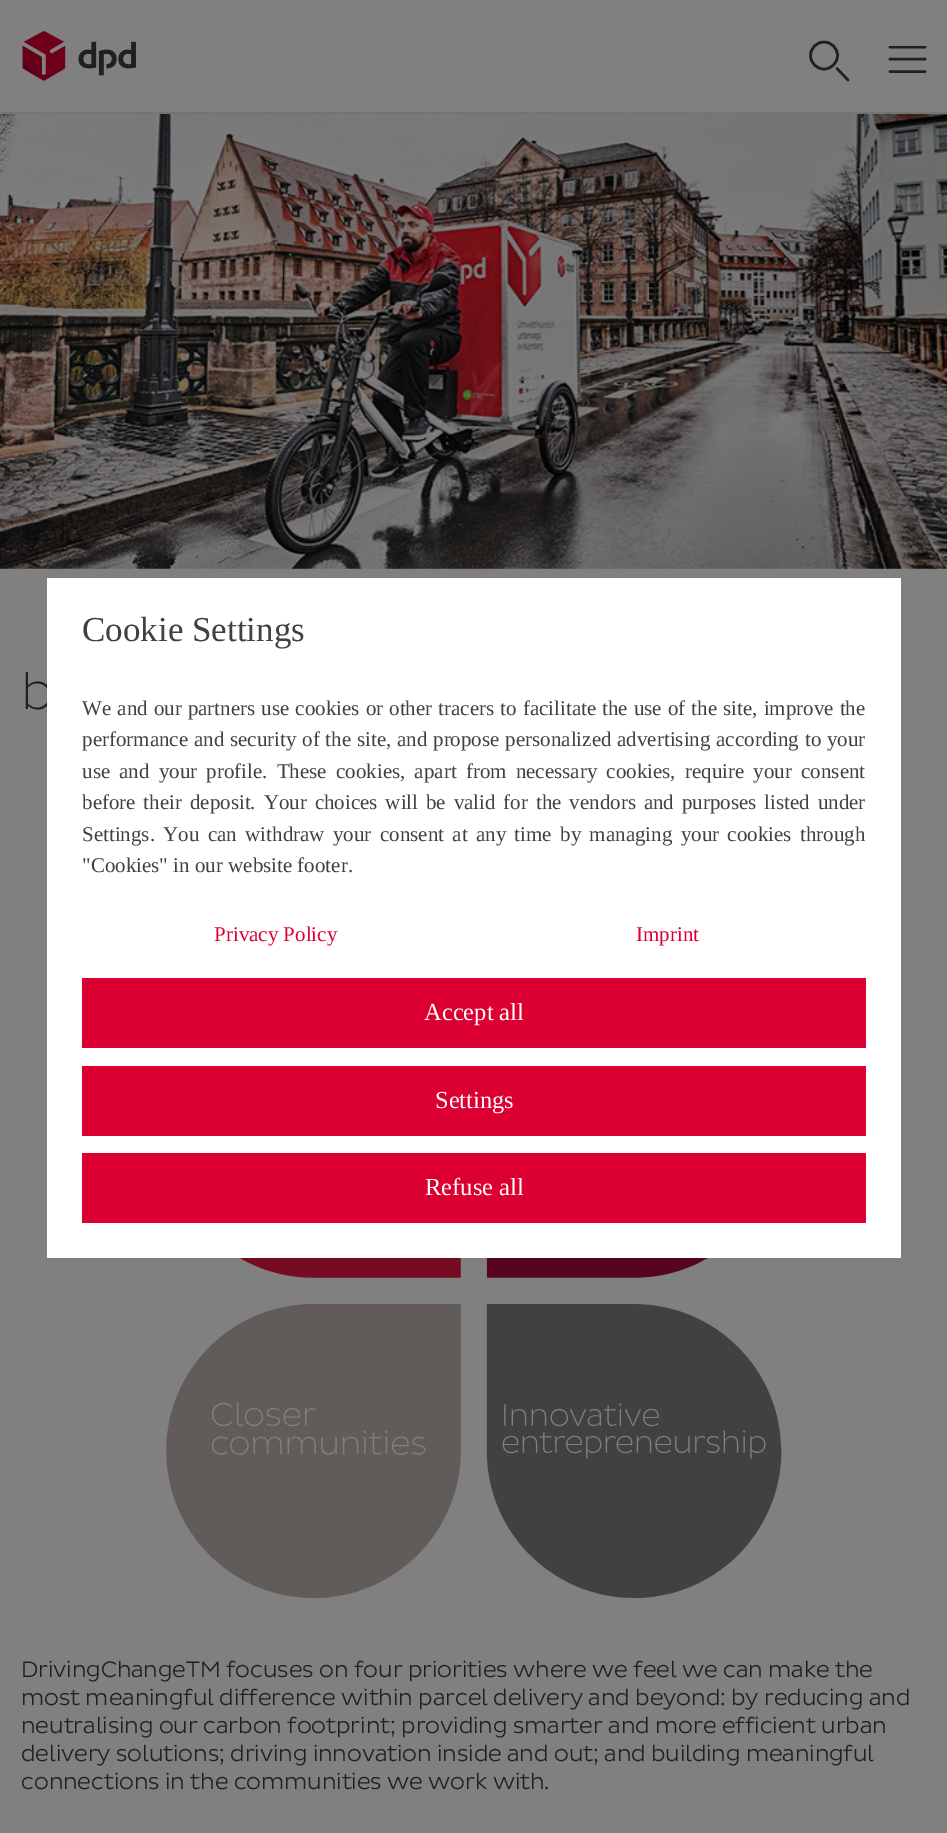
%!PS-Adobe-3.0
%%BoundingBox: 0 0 947 1833
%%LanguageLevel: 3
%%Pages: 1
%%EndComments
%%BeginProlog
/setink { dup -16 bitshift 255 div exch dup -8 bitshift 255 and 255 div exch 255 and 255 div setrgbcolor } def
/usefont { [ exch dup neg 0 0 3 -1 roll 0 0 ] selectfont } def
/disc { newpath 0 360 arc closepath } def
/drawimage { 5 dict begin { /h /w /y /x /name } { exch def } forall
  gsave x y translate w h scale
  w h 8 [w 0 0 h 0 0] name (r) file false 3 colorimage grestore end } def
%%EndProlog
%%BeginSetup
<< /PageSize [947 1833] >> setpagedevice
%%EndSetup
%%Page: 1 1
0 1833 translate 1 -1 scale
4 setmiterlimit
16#808080 setink
0 0 947 1833 rectfill
/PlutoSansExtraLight-Light 52 usefont
16#212021 setink
21 709 moveto (b) show
16#FFFFFF setink
47 578 854 680 rectfill
/LiberationSerif-Regular 35 usefont
16#414042 setink
82 641 moveto (Cookie Settings) show
/LiberationSerif-Regular 21 usefont
82 715 moveto 0.8 0 32 (We and our partners use cookies or other tracers to facilitate the use of the site, improve the) widthshow
82 746 moveto 0.5 0 32 (performance and security of the site, and propose personalized advertising according to your) widthshow
82 778 moveto 3.9 0 32 (use and your profile. These cookies, apart from necessary cookies, require your consent) widthshow
82 809 moveto 2.6 0 32 (before their deposit. Your choices will be valid for the vendors and purposes listed under) widthshow
82 841 moveto 3.1 0 32 (Settings. You can withdraw your consent at any time by managing your cookies through) widthshow
82 872 moveto ("Cookies" in our website footer.) show
16#DC0032 setink
214 941 moveto (Privacy Policy) show
636 941 moveto (Imprint) show
82 978 784 70 rectfill
/LiberationSerif-Regular 24.5 usefont
16#FFFFFF setink
424 1020 moveto (Accept all) show
16#DC0032 setink
82 1066 784 70 rectfill
16#FFFFFF setink
435 1108 moveto (Settings) show
16#DC0032 setink
82 1153 784 70 rectfill
16#FFFFFF setink
425 1195 moveto (Refuse all) show
16#737474 setink
0 112 947 2 rectfill
(img1.raw) 22 31 114 50 drawimage
16#212021 setink
2.6 setlinewidth
824 55.5 13.5 disc stroke
2.4 setlinewidth
1 setlinecap
1 setlinejoin
837 68.5 moveto 848 80 lineto stroke
gsave
887 46 41 28 rectclip
2.6 setlinewidth
0 setlinejoin
890 47 moveto 925 47 lineto 890 59 moveto 925 59 lineto 890 71.5 moveto 925 71.5 lineto stroke
grestore
(img2.raw) 0 114 947 455 drawimage
(img3.raw) 166 1258 616 340 drawimage
/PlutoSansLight-Regular 22.75 usefont
[
    [(DrivingChangeTM focuses on four priorities where we feel we can make the) 21 1677]
    [(most meaningful difference within parcel delivery and beyond: by reducing and) 21 1705]
    [(neutralising our carbon footprint; providing smarter and more efficient urban) 21 1733]
    [(delivery solutions; driving innovation inside and out; and building meaningful) 21 1761]
    [(connections in the communities we work with.) 21 1789]
] { aload pop moveto show } forall
showpage
%%EOF
